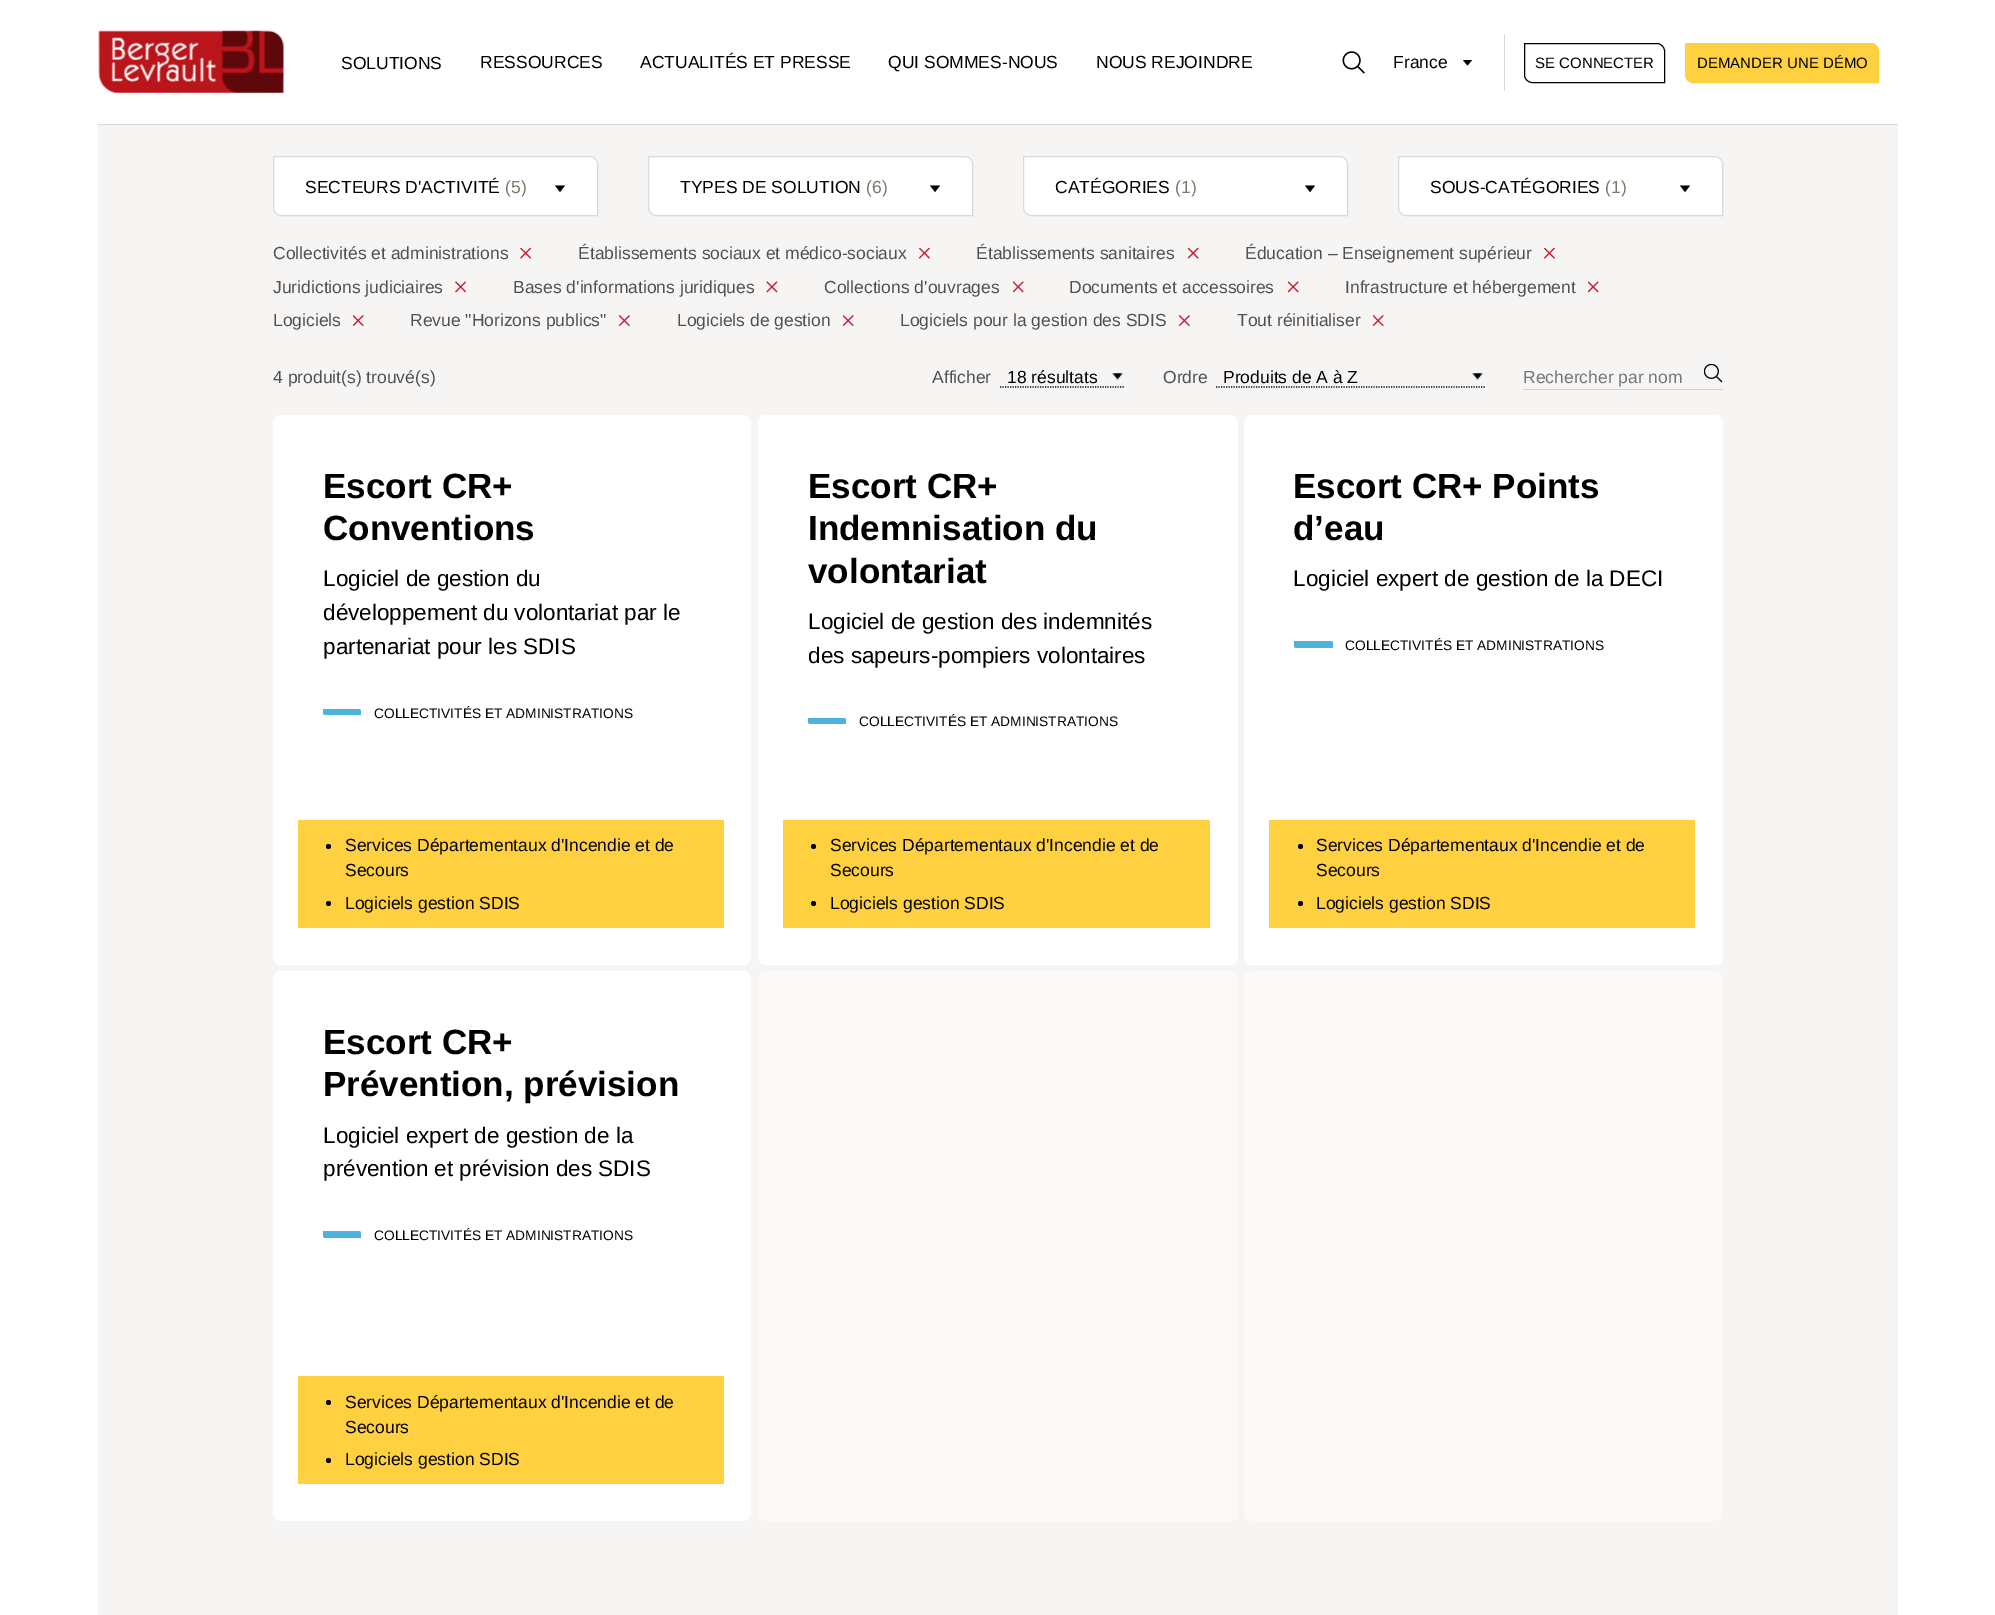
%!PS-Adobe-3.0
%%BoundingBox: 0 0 1995 1615
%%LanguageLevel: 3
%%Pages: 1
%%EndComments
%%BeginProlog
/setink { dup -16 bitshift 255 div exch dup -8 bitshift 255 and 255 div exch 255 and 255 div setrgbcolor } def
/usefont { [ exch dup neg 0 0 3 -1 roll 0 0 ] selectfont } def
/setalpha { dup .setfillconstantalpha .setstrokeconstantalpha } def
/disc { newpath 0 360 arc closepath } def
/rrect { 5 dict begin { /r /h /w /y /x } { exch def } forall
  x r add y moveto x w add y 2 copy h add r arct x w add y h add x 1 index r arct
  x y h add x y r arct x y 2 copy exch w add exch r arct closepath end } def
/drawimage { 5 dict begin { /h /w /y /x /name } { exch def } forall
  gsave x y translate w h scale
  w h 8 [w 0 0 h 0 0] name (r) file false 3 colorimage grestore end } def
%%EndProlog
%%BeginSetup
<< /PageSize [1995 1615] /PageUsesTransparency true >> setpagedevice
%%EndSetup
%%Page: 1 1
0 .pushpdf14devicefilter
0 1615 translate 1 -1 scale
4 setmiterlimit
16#FFFFFF setink
0 0 1995 1615 rectfill
(img1.raw) 98 30 186 64 drawimage
/LiberationSans-Regular 17.5 usefont
16#000000 setink
[
    [(SOLUTIONS) 341 69]
    [(RESSOURCES) 480 68]
    [(ACTUALITÉS ET PRESSE) 640 68]
    [(QUI SOMMES-NOUS) 888 68]
    [(NOUS REJOINDRE) 1096 68]
] { aload pop moveto show } forall
(img2.raw) 1342 51 23 23 drawimage
1393 68 moveto (France) show
gsave
1463 60 10 6 rectclip
1462.5 59.5 moveto 1467.5 65.5 lineto 1472.5 59.5 lineto closepath fill
grestore
16#D9D9D9 setink
1504 34 1 57 rectfill
16#000000 setink
1524.5 43.5 moveto 1657 43.5 lineto 1661 43.5 1664.5 47 1664.5 51 curveto 1664.5 82.5 lineto 1532 82.5 lineto 1528 82.5 1524.5 79 1524.5 75 curveto closepath stroke
/LiberationSans-Regular 15 usefont
1535 68 moveto (SE CONNECTER) show
16#FFD040 setink
1685.5 43.5 moveto 1871 43.5 lineto 1875 43.5 1878.5 47 1878.5 51 curveto 1878.5 82.5 lineto 1693 82.5 lineto 1689 82.5 1685.5 79 1685.5 75 curveto closepath gsave fill grestore
stroke
16#000000 setink
1697 68 moveto (DEMANDER UNE DÉMO) show
16#D9D9D9 setink
98 124 1800 1 rectfill
16#F7F5F3 setink
98 125 1800 1490 rectfill
16#FFFFFF setink
273 156 moveto 590 156 lineto 594.5 156 598 159.5 598 164 curveto 598 216 lineto 281 216 lineto 276.5 216 273 212.5 273 208 curveto closepath fill
0.15 setalpha
16#000000 setink
273.5 156.5 moveto 590 156.5 lineto 594 156.5 597.5 160 597.5 164 curveto 597.5 215.5 lineto 281 215.5 lineto 277 215.5 273.5 212 273.5 208 curveto closepath stroke
/LiberationSans-Regular 17.5 usefont
1 setalpha
305 193 moveto (SECTEURS D'ACTIVITÉ) show
16#7A7768 setink
505 193 moveto (\(5\)) show
16#000000 setink
555 185.5 moveto 560 192 lineto 565 185.5 lineto closepath fill
16#FFFFFF setink
648 156 moveto 965 156 lineto 969.5 156 973 159.5 973 164 curveto 973 216 lineto 656 216 lineto 651.5 216 648 212.5 648 208 curveto closepath fill
0.15 setalpha
16#000000 setink
648.5 156.5 moveto 965 156.5 lineto 969 156.5 972.5 160 972.5 164 curveto 972.5 215.5 lineto 656 215.5 lineto 652 215.5 648.5 212 648.5 208 curveto closepath stroke
1 setalpha
680 193 moveto (TYPES DE SOLUTION) show
16#7A7768 setink
866 193 moveto (\(6\)) show
16#000000 setink
930 185.5 moveto 935 192 lineto 940 185.5 lineto closepath fill
16#FFFFFF setink
1023 156 moveto 1340 156 lineto 1344.5 156 1348 159.5 1348 164 curveto 1348 216 lineto 1031 216 lineto 1026.5 216 1023 212.5 1023 208 curveto closepath fill
0.15 setalpha
16#000000 setink
1023.5 156.5 moveto 1340 156.5 lineto 1344 156.5 1347.5 160 1347.5 164 curveto 1347.5 215.5 lineto 1031 215.5 lineto 1027 215.5 1023.5 212 1023.5 208 curveto closepath stroke
1 setalpha
1055 193 moveto (CATÉGORIES) show
16#7A7768 setink
1175 193 moveto (\(1\)) show
16#000000 setink
1305 185.5 moveto 1310 192 lineto 1315 185.5 lineto closepath fill
16#FFFFFF setink
1398 156 moveto 1715 156 lineto 1719.5 156 1723 159.5 1723 164 curveto 1723 216 lineto 1406 216 lineto 1401.5 216 1398 212.5 1398 208 curveto closepath fill
0.15 setalpha
16#000000 setink
1398.5 156.5 moveto 1715 156.5 lineto 1719 156.5 1722.5 160 1722.5 164 curveto 1722.5 215.5 lineto 1406 215.5 lineto 1402 215.5 1398.5 212 1398.5 208 curveto closepath stroke
1 setalpha
1430 193 moveto (SOUS-CATÉGORIES) show
16#7A7768 setink
1605 193 moveto (\(1\)) show
16#000000 setink
1680 185.5 moveto 1685 192 lineto 1690 185.5 lineto closepath fill
16#505050 setink
273 259 moveto (Collectivités et administrations) show
(img3.raw) 520 248 11 11 drawimage
578 259 moveto (Établissements sociaux et médico-sociaux) show
(img4.raw) 919 248 11 11 drawimage
976 259 moveto (Établissements sanitaires) show
(img5.raw) 1188 248 11 11 drawimage
1245 259 moveto (Éducation – Enseignement supérieur) show
(img4.raw) 1544 248 11 11 drawimage
273 293 moveto (Juridictions judiciaires) show
(img6.raw) 455 281 11 12 drawimage
513 293 moveto (Bases d'informations juridiques) show
(img7.raw) 766 281 12 12 drawimage
824 293 moveto (Collections d'ouvrages) show
(img8.raw) 1013 281 11 12 drawimage
1069 293 moveto (Documents et accessoires) show
(img8.raw) 1288 281 11 12 drawimage
1345 293 moveto (Infrastructure et hébergement) show
(img8.raw) 1588 281 11 12 drawimage
273 326 moveto (Logiciels) show
(img9.raw) 353 315 11 11 drawimage
410 326 moveto (Revue "Horizons publics") show
(img10.raw) 619 315 11 11 drawimage
677 326 moveto (Logiciels de gestion) show
(img9.raw) 843 315 11 11 drawimage
900 326 moveto (Logiciels pour la gestion des SDIS) show
(img10.raw) 1179 315 11 11 drawimage
1237 326 moveto (Tout réinitialiser) show
(img9.raw) 1373 315 11 11 drawimage
273 383 moveto (4 produit\(s\) trouvé\(s\)) show
932 383 moveto (Afficher) show
(img11.raw) 1112 373 11 7 drawimage
16#000000 setink
1.2 setlinewidth
[1.25 1.25] 0 setdash
1000 387 moveto 1125 387 lineto stroke
1007 383 moveto (18 résultats) show
16#505050 setink
1163 383 moveto (Ordre) show
(img11.raw) 1472 373 11 7 drawimage
16#000000 setink
1216 387 moveto 1485 387 lineto stroke
1223 383 moveto (Produits de A à Z) show
16#D2D0CF setink
1523 389 200 1 rectfill
16#757575 setink
1523 383 moveto (Rechercher par nom) show
(img12.raw) 1704 364 19 19 drawimage
16#FFFFFF setink
273 415 478 550 8 rrect fill
/LiberationSans-Bold 35 usefont
16#000000 setink
323 498 moveto (Escort CR+) show
323 540 moveto (Conventions) show
/LiberationSans-Regular 22.5 usefont
[
    [(Logiciel de gestion du) 323 586]
    [(développement du volontariat par le) 323 620]
    [(partenariat pour les SDIS) 323 654]
] { aload pop moveto show } forall
16#4BB3DD setink
323 709 moveto 358.5 709 lineto 360 709 361 710 361 711.5 curveto 361 715 lineto 325.5 715 lineto 324 715 323 714 323 712.5 curveto closepath fill
/LiberationSans-Regular 13.75 usefont
16#000000 setink
374 718 moveto (COLLECTIVITÉS ET ADMINISTRATIONS) show
16#FFD040 setink
298 820 426 108 rectfill
16#000000 setink
328.5 846.5 2.5 disc fill
/LiberationSans-Regular 17.5 usefont
345 851 moveto (Services Départementaux d'Incendie et de) show
345 876 moveto (Secours) show
328.5 903.5 2.5 disc fill
345 909 moveto (Logiciels gestion SDIS) show
16#FFFFFF setink
758 415 480 550 8 rrect fill
/LiberationSans-Bold 35 usefont
16#000000 setink
[
    [(Escort CR+) 808 498]
    [(Indemnisation du) 808 540]
    [(volontariat) 808 583]
] { aload pop moveto show } forall
/LiberationSans-Regular 22.5 usefont
808 629 moveto (Logiciel de gestion des indemnités) show
808 663 moveto (des sapeurs-pompiers volontaires) show
16#4BB3DD setink
808 718 moveto 843.5 718 lineto 845 718 846 719 846 720.5 curveto 846 724 lineto 810.5 724 lineto 809 724 808 723 808 721.5 curveto closepath fill
/LiberationSans-Regular 13.75 usefont
16#000000 setink
859 726 moveto (COLLECTIVITÉS ET ADMINISTRATIONS) show
16#FFD040 setink
783 820 427 108 rectfill
16#000000 setink
813.5 846.5 2.5 disc fill
/LiberationSans-Regular 17.5 usefont
830 851 moveto (Services Départementaux d'Incendie et de) show
830 876 moveto (Secours) show
813.5 903.5 2.5 disc fill
830 909 moveto (Logiciels gestion SDIS) show
16#FFFFFF setink
1244 415 479 550 8 rrect fill
/LiberationSans-Bold 35 usefont
16#000000 setink
1293 498 moveto (Escort CR+ Points) show
1293 540 moveto (d’eau) show
/LiberationSans-Regular 22.5 usefont
1293 586 moveto (Logiciel expert de gestion de la DECI) show
16#4BB3DD setink
1294 641 moveto 1330.5 641 lineto 1332 641 1333 642 1333 643.5 curveto 1333 648 lineto 1296.5 648 lineto 1295 648 1294 647 1294 645.5 curveto closepath fill
/LiberationSans-Regular 13.75 usefont
16#000000 setink
1345 650 moveto (COLLECTIVITÉS ET ADMINISTRATIONS) show
16#FFD040 setink
1269 820 426 108 rectfill
16#000000 setink
1300.5 846.5 2.5 disc fill
/LiberationSans-Regular 17.5 usefont
1316 851 moveto (Services Départementaux d'Incendie et de) show
1316 876 moveto (Secours) show
1300.5 903.5 2.5 disc fill
1316 909 moveto (Logiciels gestion SDIS) show
16#FFFFFF setink
273 971 478 550 8 rrect fill
/LiberationSans-Bold 35 usefont
16#000000 setink
323 1054 moveto (Escort CR+) show
323 1096 moveto (Prévention, prévision) show
/LiberationSans-Regular 22.5 usefont
323 1143 moveto (Logiciel expert de gestion de la) show
323 1176 moveto (prévention et prévision des SDIS) show
16#4BB3DD setink
323 1231 moveto 358.5 1231 lineto 360 1231 361 1232 361 1233.5 curveto 361 1238 lineto 325.5 1238 lineto 324 1238 323 1237 323 1235.5 curveto closepath fill
/LiberationSans-Regular 13.75 usefont
16#000000 setink
374 1240 moveto (COLLECTIVITÉS ET ADMINISTRATIONS) show
16#FFD040 setink
298 1376 426 108 rectfill
16#000000 setink
328.5 1402.5 2.5 disc fill
/LiberationSans-Regular 17.5 usefont
345 1408 moveto (Services Départementaux d'Incendie et de) show
345 1433 moveto (Secours) show
328.5 1460.5 2.5 disc fill
345 1465 moveto (Logiciels gestion SDIS) show
16#FBFAF9 setink
758 971 480 550 8 rrect fill
1244 971 479 550 8 rrect fill
.poppdf14devicefilter showpage
%%EOF
